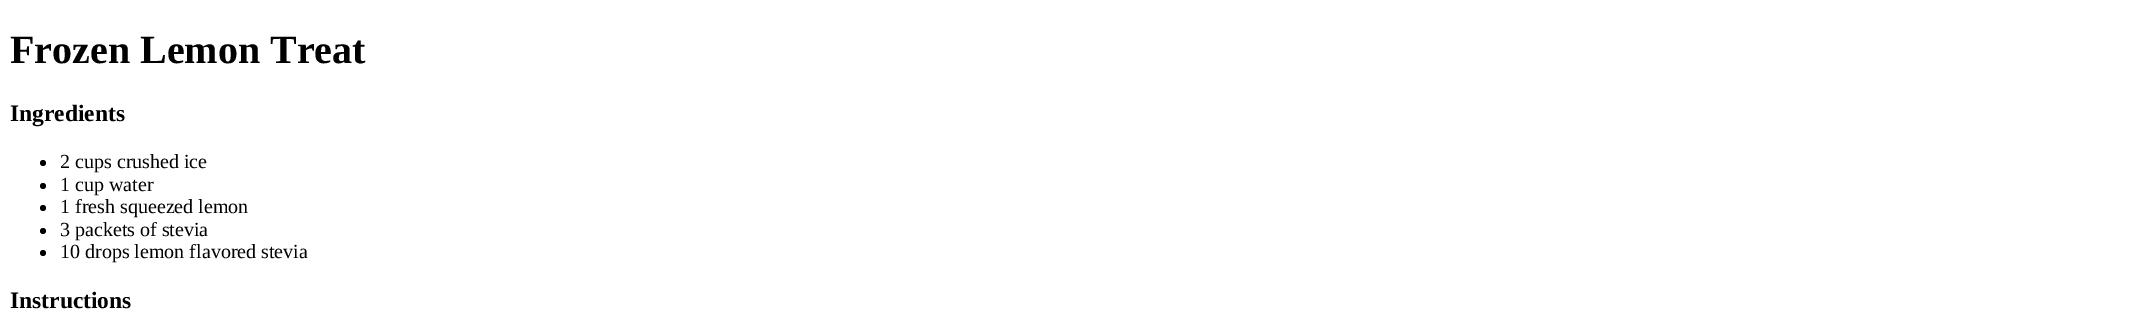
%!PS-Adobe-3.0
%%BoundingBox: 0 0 2129 334
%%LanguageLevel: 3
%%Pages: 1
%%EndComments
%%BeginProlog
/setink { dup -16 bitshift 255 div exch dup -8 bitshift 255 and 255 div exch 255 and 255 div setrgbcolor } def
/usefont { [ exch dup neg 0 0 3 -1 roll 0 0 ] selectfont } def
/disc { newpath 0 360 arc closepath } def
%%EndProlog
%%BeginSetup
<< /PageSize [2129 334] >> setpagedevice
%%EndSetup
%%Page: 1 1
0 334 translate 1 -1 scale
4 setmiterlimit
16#FFFFFF setink
0 0 2129 334 rectfill
/LiberationSerif-Bold 40 usefont
16#000000 setink
10 63 moveto (Frozen Lemon Treat) show
/LiberationSerif-Bold 23.5 usefont
10 121 moveto (Ingredients) show
43 163 3 disc fill
/LiberationSerif-Regular 20 usefont
60 168 moveto (2 cups crushed ice) show
43 186 3 disc fill
60 191 moveto (1 cup water) show
43 208 3 disc fill
60 213 moveto (1 fresh squeezed lemon) show
43 231 3 disc fill
60 236 moveto (3 packets of stevia) show
43 253 3 disc fill
60 258 moveto (10 drops lemon flavored stevia) show
/LiberationSerif-Bold 23.5 usefont
10 308 moveto (Instructions) show
showpage
%%EOF
